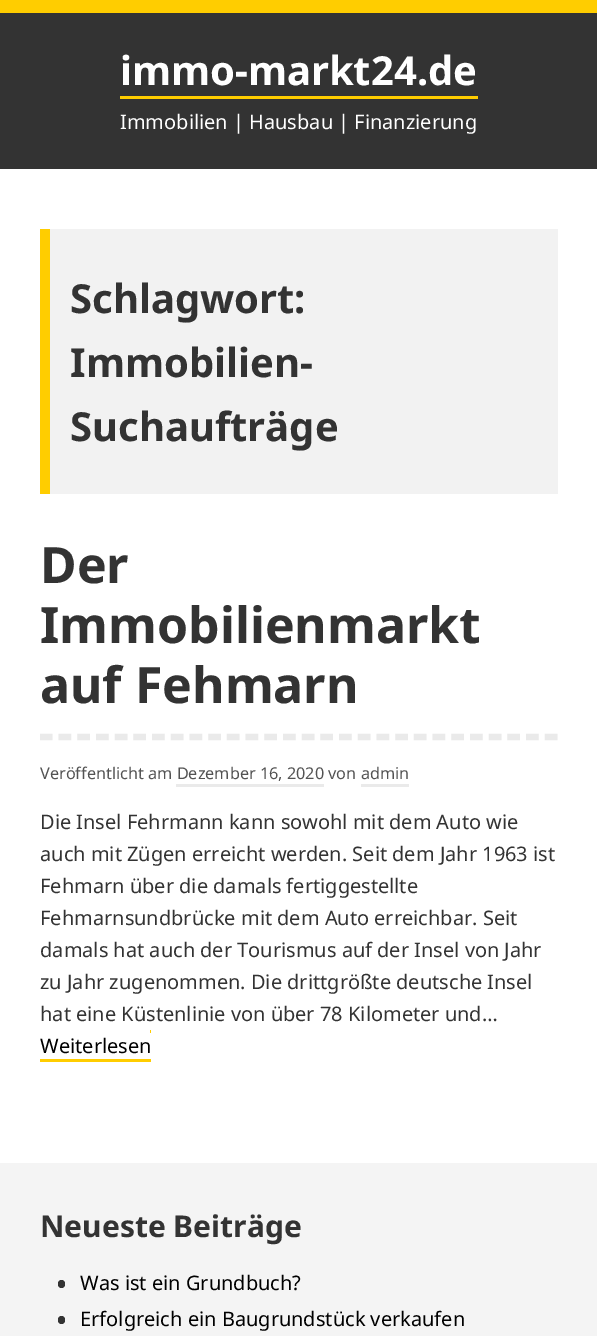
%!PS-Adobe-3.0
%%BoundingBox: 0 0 597 1336
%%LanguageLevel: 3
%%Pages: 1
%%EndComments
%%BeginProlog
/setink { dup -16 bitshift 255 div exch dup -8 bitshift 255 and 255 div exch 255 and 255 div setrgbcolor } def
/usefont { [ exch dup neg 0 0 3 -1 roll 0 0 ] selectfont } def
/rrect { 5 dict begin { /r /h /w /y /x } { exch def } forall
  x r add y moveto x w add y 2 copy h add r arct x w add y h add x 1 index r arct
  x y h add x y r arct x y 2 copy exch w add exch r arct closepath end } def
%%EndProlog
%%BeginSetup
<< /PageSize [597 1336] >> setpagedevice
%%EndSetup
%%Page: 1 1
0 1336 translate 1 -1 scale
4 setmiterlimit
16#F4F4F4 setink
0 0 597 1336 rectfill
16#333333 setink
0 13 597 156 rectfill
16#FFCD00 setink
0 0 597 13 rectfill
/NotoSans-Bold 40 usefont
16#FFFFFF setink
120 85 moveto (immo-markt24.de) show
16#FFCD00 setink
120 96 358 3 rectfill
/NotoSans-Regular 20 usefont
16#FFFFFF setink
120 129 moveto (Immobilien | Hausbau | Finanzierung) show
[
    [0 169 597 994 16#FFFFFF]
    [50 229 508 265 16#F2F2F2]
    [40 229 10 265 16#FFCD00]
] { aload pop setink rectfill } forall
/NotoSans-Bold 40 usefont
16#333333 setink
[
    [(Schlagwort:) 70 313]
    [(Immobilien-) 70 377]
    [(Suchaufträge) 70 441]
] { aload pop moveto show } forall
16#EAEAEA setink
6.2 setlinewidth
[12.5 6.2] 0 setdash
40 737 moveto 557.5 737 lineto stroke
/NotoSans-Bold 50 usefont
16#333333 setink
[
    [(Der) 40 583]
    [(Immobilienmarkt) 40 643]
    [(auf Fehmarn) 40 703]
] { aload pop moveto show } forall
/NotoSans-Regular 16.25 usefont
16#535353 setink
40 779 moveto (Veröffentlicht am Dezember 16, 2020 von admin) show
16#EAEAEA setink
176 784 148 3 rectfill
361 784 48 3 rectfill
/NotoSans-Regular 20 usefont
16#333333 setink
[
    [(Die Insel Fehrmann kann sowohl mit dem Auto wie) 40 829]
    [(auch mit Zügen erreicht werden. Seit dem Jahr 1963 ist) 40 861]
    [(Fehmarn über die damals fertiggestellte) 40 893]
    [(Fehmarnsundbrücke mit dem Auto erreichbar. Seit) 40 925]
    [(damals hat auch der Tourismus auf der Insel von Jahr) 40 957]
    [(zu Jahr zugenommen. Die drittgrößte deutsche Insel) 40 989]
    [(hat eine Küstenlinie von über 78 Kilometer und…) 40 1021]
] { aload pop moveto show } forall
16#000000 setink
40 1053 moveto (Weiterlesen) show
16#FFCD00 setink
40 1059 111 3 rectfill
150 1030 1 3 rectfill
/NotoSans-Bold 30 usefont
16#333333 setink
40 1237 moveto (Neueste Beiträge) show
58 1280 7 8 3.5 rrect fill
/NotoSans-Regular 20 usefont
16#000000 setink
80 1290 moveto (Was ist ein Grundbuch?) show
16#333333 setink
58 1316 7 8 3.5 rrect fill
16#000000 setink
80 1326 moveto (Erfolgreich ein Baugrundstück verkaufen) show
showpage
%%EOF
